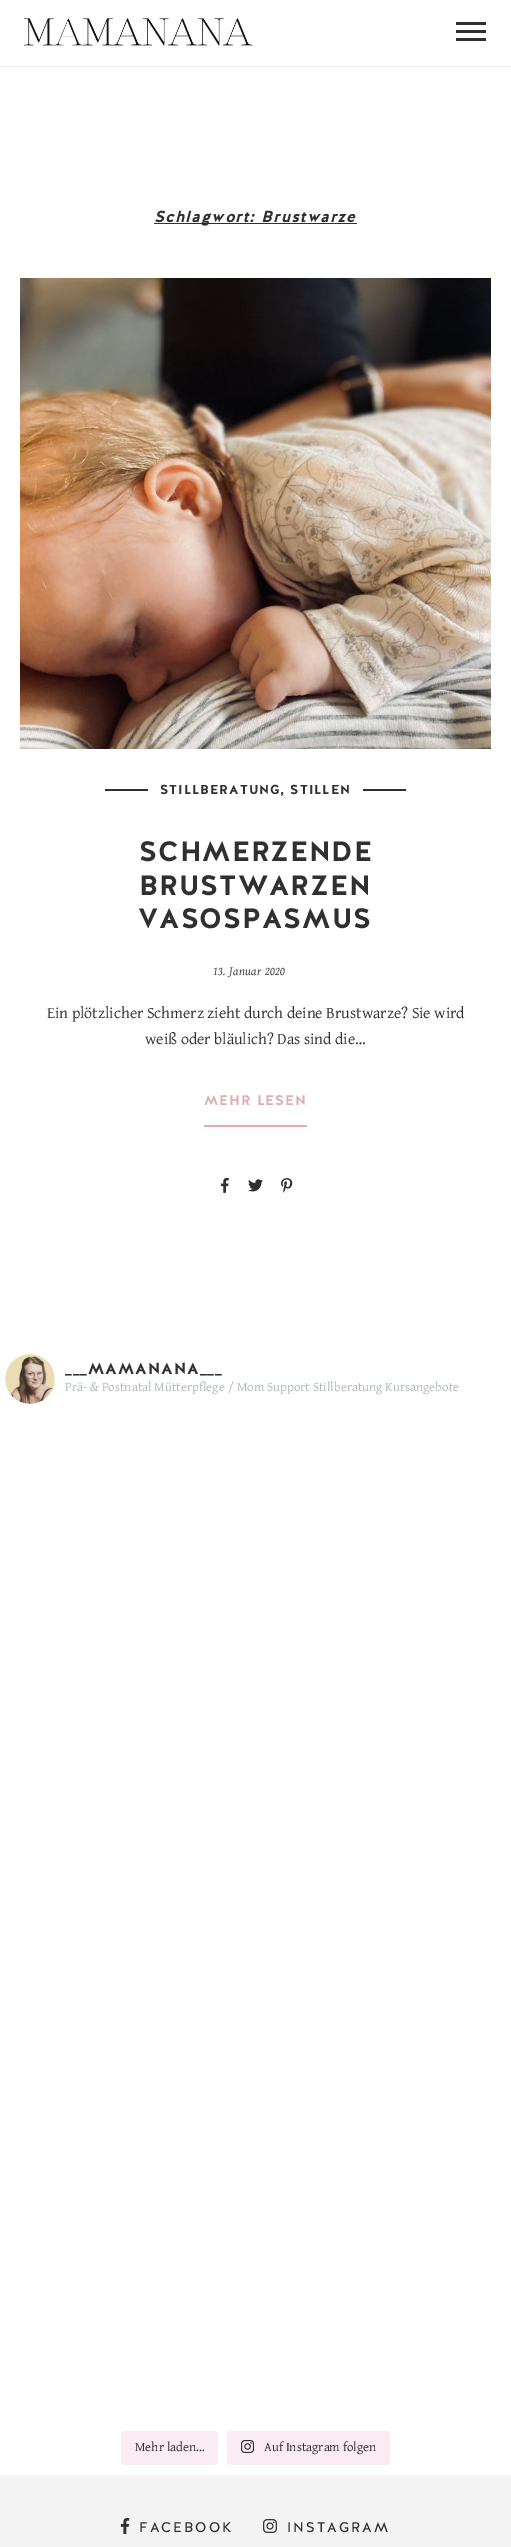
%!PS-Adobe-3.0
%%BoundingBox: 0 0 511 2547
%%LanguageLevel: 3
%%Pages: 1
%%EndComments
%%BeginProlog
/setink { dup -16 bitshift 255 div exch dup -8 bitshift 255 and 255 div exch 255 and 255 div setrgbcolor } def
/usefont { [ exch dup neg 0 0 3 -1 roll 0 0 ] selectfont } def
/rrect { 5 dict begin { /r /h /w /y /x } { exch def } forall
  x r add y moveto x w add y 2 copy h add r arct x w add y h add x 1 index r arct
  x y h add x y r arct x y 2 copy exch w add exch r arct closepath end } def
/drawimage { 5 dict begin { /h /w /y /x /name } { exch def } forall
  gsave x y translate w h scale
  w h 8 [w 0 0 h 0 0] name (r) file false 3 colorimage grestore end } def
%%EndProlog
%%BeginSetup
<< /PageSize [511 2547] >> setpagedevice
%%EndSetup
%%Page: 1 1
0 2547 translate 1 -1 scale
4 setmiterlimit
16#FFFFFF setink
0 0 511 2547 rectfill
16#EEEEEE setink
0 66 511 1 rectfill
(img1.raw) 24 18 229 28 drawimage
[
    [456 22 30 3 16#303030]
    [456 30 30 3 16#303030]
    [456 38 30 3 16#303030]
    [154 223 203 1 16#303030]
] { aload pop setink rectfill } forall
/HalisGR-BoldItalic 16 usefont
154 222 moveto 1 0 (Schlagwort: Brustwarze) ashow
(img2.raw) 20 278 471 471 drawimage
105 789 301 2 rectfill
16#FFFFFF setink
148 789 215 2 rectfill
/HalisGR-Bold 13 usefont
16#303030 setink
160 794 moveto 1 0 (STILLBERATUNG) ashow
280 794 moveto 1 0 (, STILLEN) ashow
/HalisGR-Bold 28 usefont
139 861 moveto 1 0 (SCHMERZENDE) ashow
139 895 moveto 1 0 (BRUSTWARZEN) ashow
138 928 moveto 1 0 (VASOSPASMUS) ashow
/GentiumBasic-Italic 12 usefont
213 975 moveto 0.4 0 (13. Januar 2020) ashow
/GentiumBasic-Regular 16 usefont
47 1018 moveto (Ein plötzlicher Schmerz zieht durch deine Brustwarze? Sie wird) show
145 1044 moveto (weiß oder bläulich? Das sind die…) show
16#DDAFAF setink
204 1125 103 2 rectfill
/HalisGR-Bold 14 usefont
204 1105 moveto 1 0 (MEHR LESEN) ashow
(img3.raw) 221 1177 8 16 drawimage
(img4.raw) 248 1179 15 13 drawimage
(img5.raw) 281 1178 12 15 drawimage
(img6.raw) 5 1354 50 50 drawimage
/HalisGR-Bold 16 usefont
16#303030 setink
65 1374 moveto 1 0 (___MAMANANA___) ashow
/GentiumBasic-Regular 13 usefont
16#B0B9B7 setink
65 1391 moveto (Prä- & Postnatal Mütterpflege / Mom Support Stillberatung Kursangebote) show
16#FBECF4 setink
121 2431 97 34 4 rrect fill
16#303030 setink
135 2451 moveto (Mehr laden…) show
16#FBECF4 setink
227 2431 163 34 4 rrect fill
(img7.raw) 241 2440 13 13 drawimage
16#303030 setink
264 2451 moveto (Auf Instagram folgen) show
16#F3F3F3 setink
0 2475 511 72 rectfill
(img8.raw) 121 2518 9 16 drawimage
/HalisGR-Regular 14 usefont
16#303030 setink
139 2532 moveto 2 0 (FACEBOOK) ashow
(img9.raw) 263 2519 14 14 drawimage
287 2532 moveto 2 0 (INSTAGRAM) ashow
showpage
%%EOF
